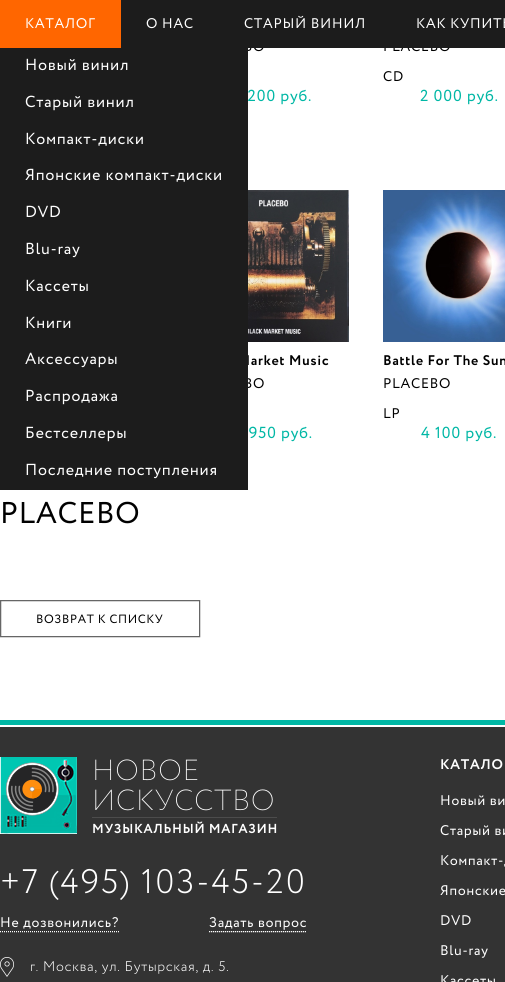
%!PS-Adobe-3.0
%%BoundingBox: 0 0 505 982
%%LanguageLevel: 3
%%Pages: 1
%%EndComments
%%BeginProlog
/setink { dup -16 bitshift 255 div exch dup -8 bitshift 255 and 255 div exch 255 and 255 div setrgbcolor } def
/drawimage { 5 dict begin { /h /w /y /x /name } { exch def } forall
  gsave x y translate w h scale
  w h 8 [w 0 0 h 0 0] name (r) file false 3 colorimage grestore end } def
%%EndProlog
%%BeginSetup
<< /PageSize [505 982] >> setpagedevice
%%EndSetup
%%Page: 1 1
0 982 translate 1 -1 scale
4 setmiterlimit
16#FFFFFF setink
0 0 505 982 rectfill
16#1C1C1C setink
121 0 384 48 rectfill
16#FF6600 setink
0 0 121 48 rectfill
(img1.raw) 26 18 69 11 drawimage
16#1C1C1C setink
0 48 248 442 rectfill
(img2.raw) 26 58 102 13 drawimage
(img3.raw) 25 95 108 16 drawimage
(img4.raw) 26 132 117 14 drawimage
(img5.raw) 25 168 196 14 drawimage
(img6.raw) 26 205 34 13 drawimage
(img7.raw) 26 242 54 16 drawimage
(img8.raw) 26 279 62 13 drawimage
(img9.raw) 26 316 45 12 drawimage
(img10.raw) 25 352 92 16 drawimage
(img11.raw) 26 389 91 16 drawimage
(img12.raw) 26 426 100 16 drawimage
(img13.raw) 26 463 190 16 drawimage
(img14.raw) 244 15 120 14 drawimage
(img15.raw) 146 18 47 11 drawimage
(img16.raw) 417 18 88 10 drawimage
(img17.raw) 248 48 16 4 drawimage
(img18.raw) 248 89 63 16 drawimage
(img19.raw) 384 48 66 4 drawimage
(img20.raw) 383 71 20 11 drawimage
(img21.raw) 420 89 78 16 drawimage
(img22.raw) 248 190 101 152 drawimage
(img23.raw) 248 355 81 11 drawimage
(img24.raw) 248 378 16 11 drawimage
(img25.raw) 249 426 63 16 drawimage
(img26.raw) 383 190 122 152 drawimage
(img27.raw) 384 355 121 11 drawimage
(img28.raw) 384 378 66 11 drawimage
(img29.raw) 384 408 15 10 drawimage
(img30.raw) 421 426 75 16 drawimage
(img31.raw) 3 501 136 23 drawimage
16#666666 setink
0.5 600.5 199 36 rectstroke
(img32.raw) 37 614 126 10 drawimage
16#333333 setink
0 727 505 255 rectfill
16#00B7A5 setink
0 720 505 5 rectfill
(img33.raw) 0 757 77 77 drawimage
(img34.raw) 5 762 54 54 drawimage
16#4C4C4C setink
92 817 185 1 rectfill
(img35.raw) 95 759 103 22 drawimage
(img36.raw) 95 789 178 22 drawimage
(img37.raw) 93 821 184 13 drawimage
(img38.raw) 2 868 301 32 drawimage
16#FFFFFF setink
[1 1] 0 setdash
0 931.5 moveto 119 931.5 lineto stroke
(img39.raw) 1 917 117 12 drawimage
209 931.5 moveto 307 931.5 lineto stroke
(img40.raw) 209 917 97 13 drawimage
(img41.raw) 0 957 14 20 drawimage
(img42.raw) 31 961 197 13 drawimage
(img43.raw) 441 759 62 11 drawimage
(img44.raw) 441 795 64 11 drawimage
(img45.raw) 440 825 65 13 drawimage
(img46.raw) 441 855 64 12 drawimage
(img47.raw) 440 885 65 11 drawimage
(img48.raw) 441 915 30 11 drawimage
(img49.raw) 441 945 47 13 drawimage
(img50.raw) 441 975 54 7 drawimage
showpage
%%EOF
